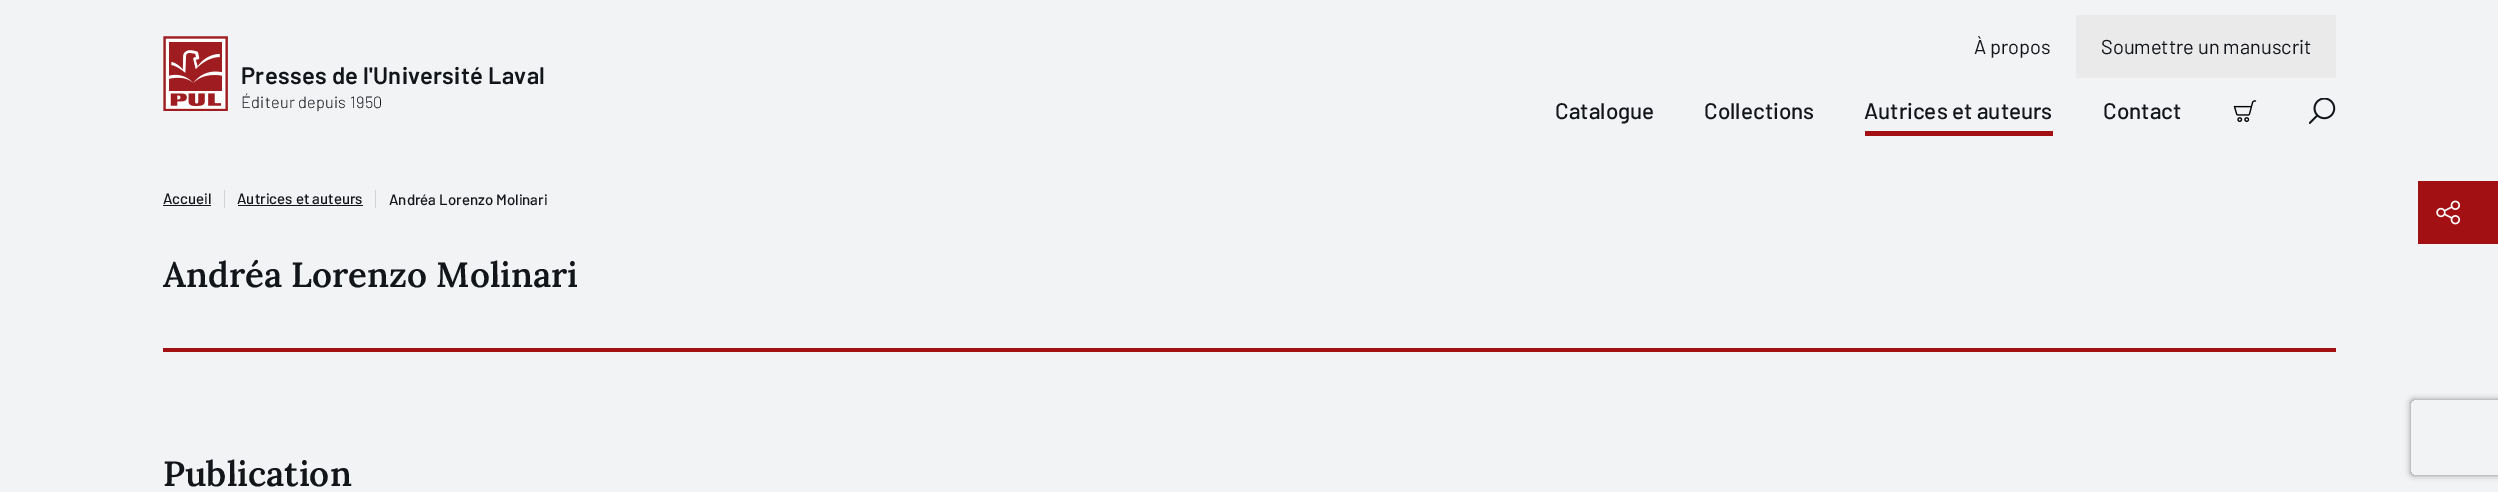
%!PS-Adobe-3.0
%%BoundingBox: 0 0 2498 492
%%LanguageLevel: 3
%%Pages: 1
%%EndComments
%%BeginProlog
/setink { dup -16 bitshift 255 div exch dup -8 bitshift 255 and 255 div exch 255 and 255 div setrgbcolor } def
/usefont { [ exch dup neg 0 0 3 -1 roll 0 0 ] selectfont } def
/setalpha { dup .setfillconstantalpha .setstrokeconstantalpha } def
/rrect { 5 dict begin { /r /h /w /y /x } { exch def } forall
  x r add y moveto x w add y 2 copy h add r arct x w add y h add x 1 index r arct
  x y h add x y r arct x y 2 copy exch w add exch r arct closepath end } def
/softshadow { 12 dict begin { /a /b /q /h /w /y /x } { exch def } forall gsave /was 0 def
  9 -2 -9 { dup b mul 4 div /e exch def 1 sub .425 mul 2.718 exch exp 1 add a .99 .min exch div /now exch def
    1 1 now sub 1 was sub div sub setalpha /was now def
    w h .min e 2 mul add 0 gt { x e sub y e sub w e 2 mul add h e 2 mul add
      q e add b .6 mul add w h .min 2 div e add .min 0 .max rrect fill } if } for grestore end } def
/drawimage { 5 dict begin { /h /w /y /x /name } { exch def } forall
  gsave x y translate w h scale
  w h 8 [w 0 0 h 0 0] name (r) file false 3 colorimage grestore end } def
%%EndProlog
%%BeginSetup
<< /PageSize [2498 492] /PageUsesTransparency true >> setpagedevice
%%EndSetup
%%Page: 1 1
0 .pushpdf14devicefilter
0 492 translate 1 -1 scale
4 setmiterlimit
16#F2F3F4 setink
0 0 2498 492 rectfill
(img1.raw) 163 36 65 75 drawimage
/Barlow-SemiBold 23.75 usefont
16#12151A setink
241 84 moveto 0.25 0 (Presses de l'Université Laval) ashow
/Barlow-Light 16.25 usefont
241 108 moveto 0.25 0 (Éditeur depuis 1950) ashow
/Barlow-Regular 20 usefont
1974 54 moveto (À propos) show
16#EAEAEA setink
2076 15 260 63 rectfill
16#12151A setink
2101 54 moveto (Soumettre un manuscrit) show
/Barlow-Medium 22.5 usefont
[
    [(Catalogue) 1555 119]
    [(Collections) 1704 119]
    [(Autrices et auteurs) 1864 119]
] { aload pop moveto show } forall
16#A31014 setink
1865 131 188 5 rectfill
16#12151A setink
2103 119 moveto (Contact) show
(img2.raw) 2233 100 24 22 drawimage
(img3.raw) 2309 98 27 26 drawimage
/Barlow-Medium 15 usefont
163 204 moveto (Accueil) show
163 205 48 1 rectfill
16#D2D2D2 setink
224 190 1 18 rectfill
16#12151A setink
237 204 moveto (Autrices et auteurs) show
238 205 125 1 rectfill
16#D2D2D2 setink
375 190 1 18 rectfill
16#12151A setink
389 205 moveto (Andréa Lorenzo Molinari) show
16#A31014 setink
2418 181 80 63 rectfill
(img4.raw) 2436 200 24 25 drawimage
/Lora-SemiBold 35 usefont
16#12151A setink
163 287 moveto (Andréa Lorenzo Molinari) show
16#A31014 setink
163 348 2173 4 rectfill
16#12151A setink
163 486 moveto (Publication) show
gsave
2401 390 moveto 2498 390 lineto 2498 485 lineto 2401 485 lineto closepath 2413.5 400 moveto 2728.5 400 lineto 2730 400 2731 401 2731 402.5 curveto 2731 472.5 lineto 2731 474 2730 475 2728.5 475 curveto 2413.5 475 lineto 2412 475 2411 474 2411 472.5 curveto 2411 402.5 lineto 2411 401 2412 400 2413.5 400 curveto closepath eoclip newpath
16#808080 setink
2411 400 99 75 2.5 3 1 softshadow
grestore
.poppdf14devicefilter showpage
%%EOF
